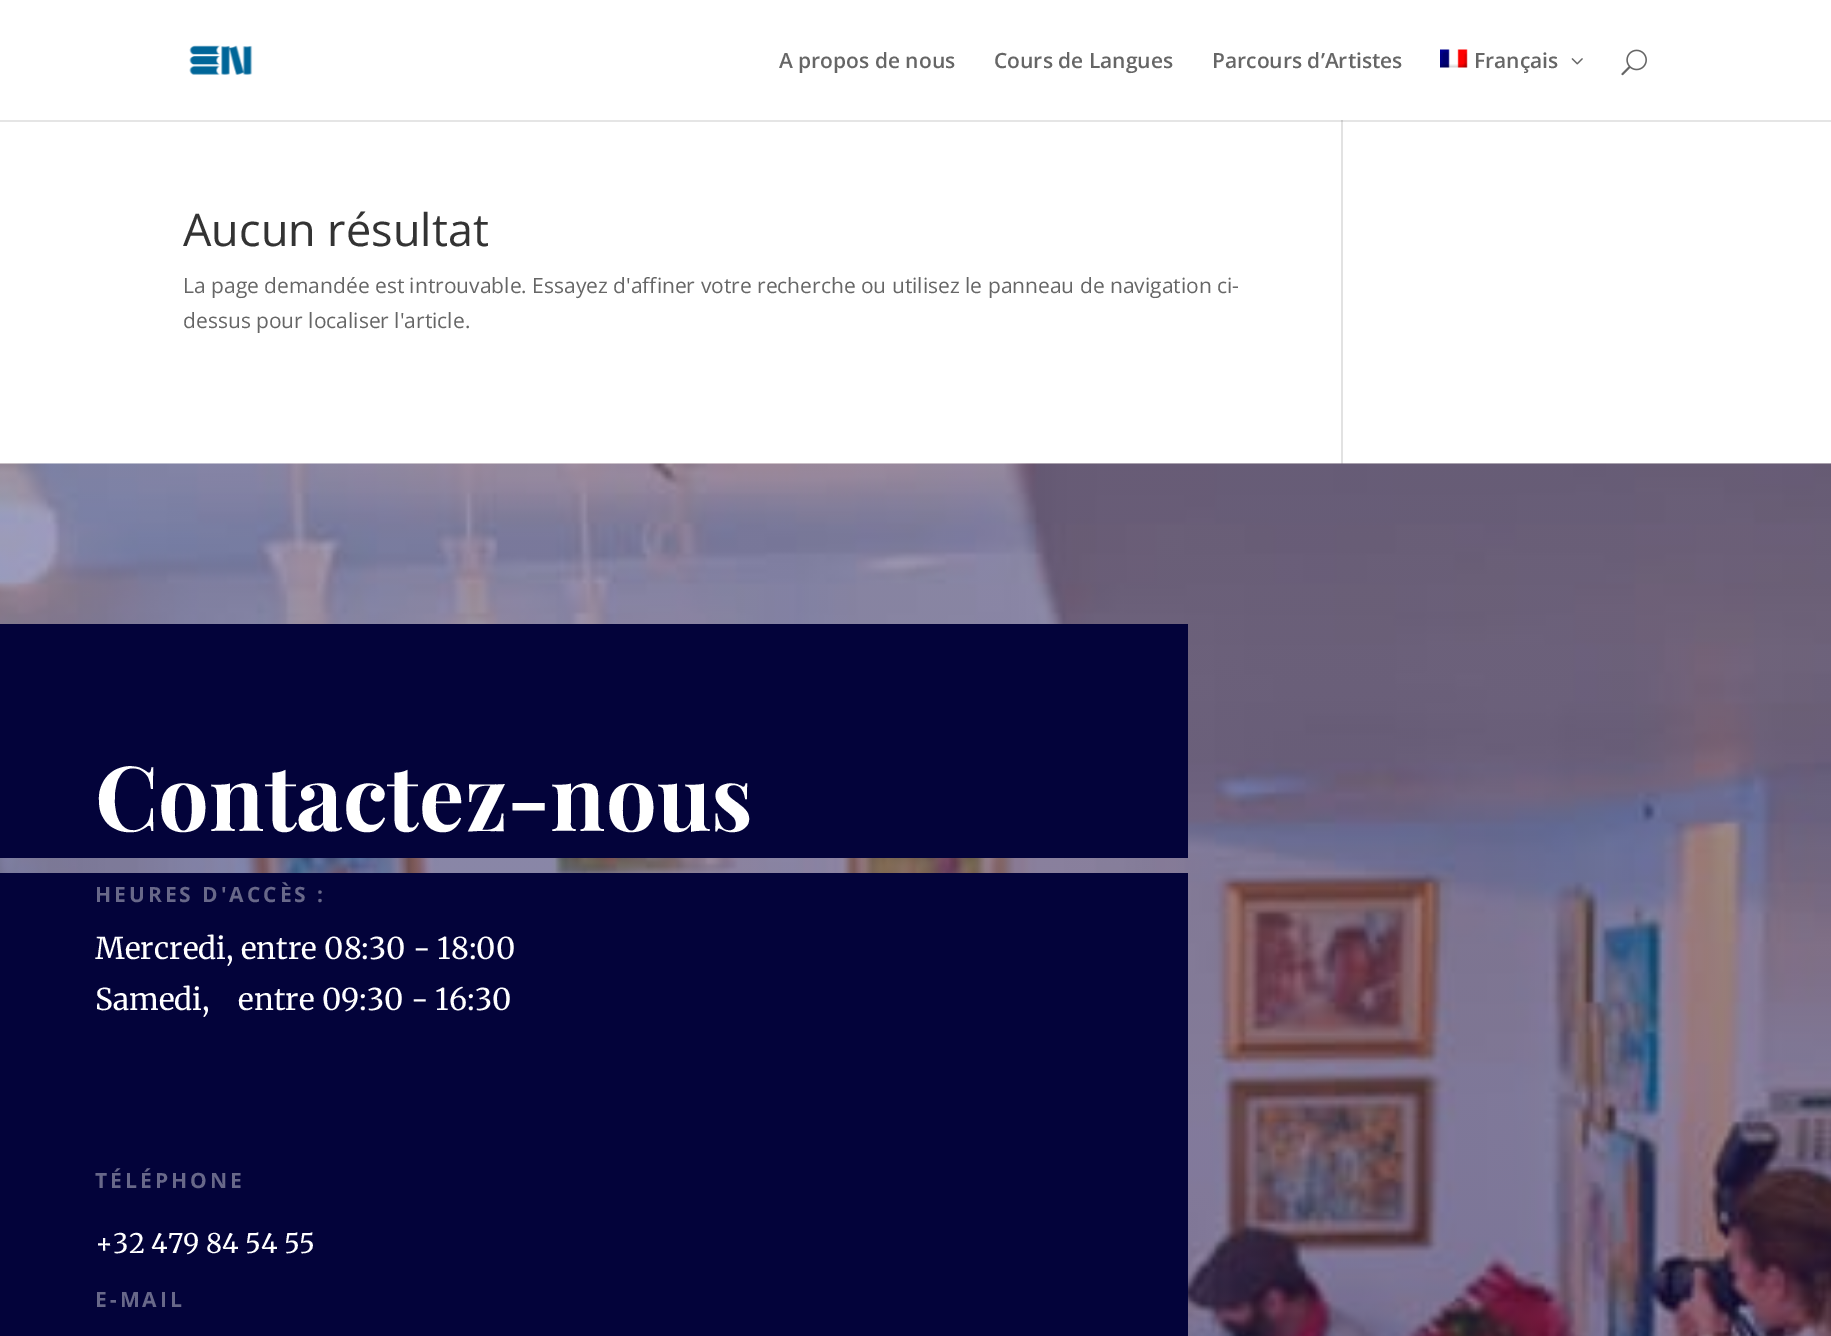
%!PS-Adobe-3.0
%%BoundingBox: 0 0 1831 1336
%%LanguageLevel: 3
%%Pages: 1
%%EndComments
%%BeginProlog
/setink { dup -16 bitshift 255 div exch dup -8 bitshift 255 and 255 div exch 255 and 255 div setrgbcolor } def
/usefont { [ exch dup neg 0 0 3 -1 roll 0 0 ] selectfont } def
/setalpha { dup .setfillconstantalpha .setstrokeconstantalpha } def
/drawimage { 5 dict begin { /h /w /y /x /name } { exch def } forall
  gsave x y translate w h scale
  w h 8 [w 0 0 h 0 0] name (r) file false 3 colorimage grestore end } def
%%EndProlog
%%BeginSetup
<< /PageSize [1831 1336] /PageUsesTransparency true >> setpagedevice
%%EndSetup
%%Page: 1 1
0 .pushpdf14devicefilter
0 1336 translate 1 -1 scale
4 setmiterlimit
16#FFFFFF setink
0 0 1831 1336 rectfill
16#E2E2E2 setink
1341 120 2 344 rectfill
0.1 setalpha
16#000000 setink
0 120 moveto 0 122 lineto 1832 122 lineto 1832 2 lineto 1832 120 lineto closepath fill
1 setalpha
(img1.raw) 189 45 64 30 drawimage
/OpenSans-SemiBold 21 usefont
16#666666 setink
[
    [(A propos de nous) 779 68]
    [(Cours de Langues) 994 68]
    [(Parcours d’Artistes) 1212 68]
] { aload pop moveto show } forall
(img2.raw) 1440 49 28 19 drawimage
1474 68 moveto (Français) show
(img3.raw) 1571 58 12 7 drawimage
(img4.raw) 1621 49 26 27 drawimage
/OpenSans-Regular 45 usefont
16#333333 setink
183 246 moveto (Aucun résultat) show
/OpenSans-Regular 21 usefont
16#666666 setink
183 293 moveto (La page demandée est introuvable. Essayez d'affiner votre recherche ou utilisez le panneau de navigation ci-) show
183 328 moveto (dessus pour localiser l'article.) show
(img5.raw) 0 463 1831 873 drawimage
16#03033A setink
0 624 1188 234 rectfill
/PlayfairDisplay-Bold 90 usefont
16#FFFFFF setink
95 831 moveto (Contactez-nous) show
16#03033A setink
0 873 1188 463 rectfill
/OpenSans-Bold 21 usefont
16#686889 setink
95 902 moveto 3 0 (HEURES D'ACCÈS :) ashow
/Merriweather-Regular 30 usefont
16#FFFFFF setink
95 959 moveto (Mercredi, entre 08:30 - 18:00) show
95 1010 moveto (Samedi,    entre 09:30 - 16:30) show
/OpenSans-Bold 21 usefont
16#686889 setink
95 1188 moveto 3 0 (TÉLÉPHONE) ashow
/Merriweather-Regular 27 usefont
16#FFFFFF setink
95 1253 moveto (+32 479 84 54 55) show
/OpenSans-Bold 21 usefont
16#686889 setink
95 1307 moveto 3 0 (E-MAIL) ashow
.poppdf14devicefilter showpage
%%EOF
